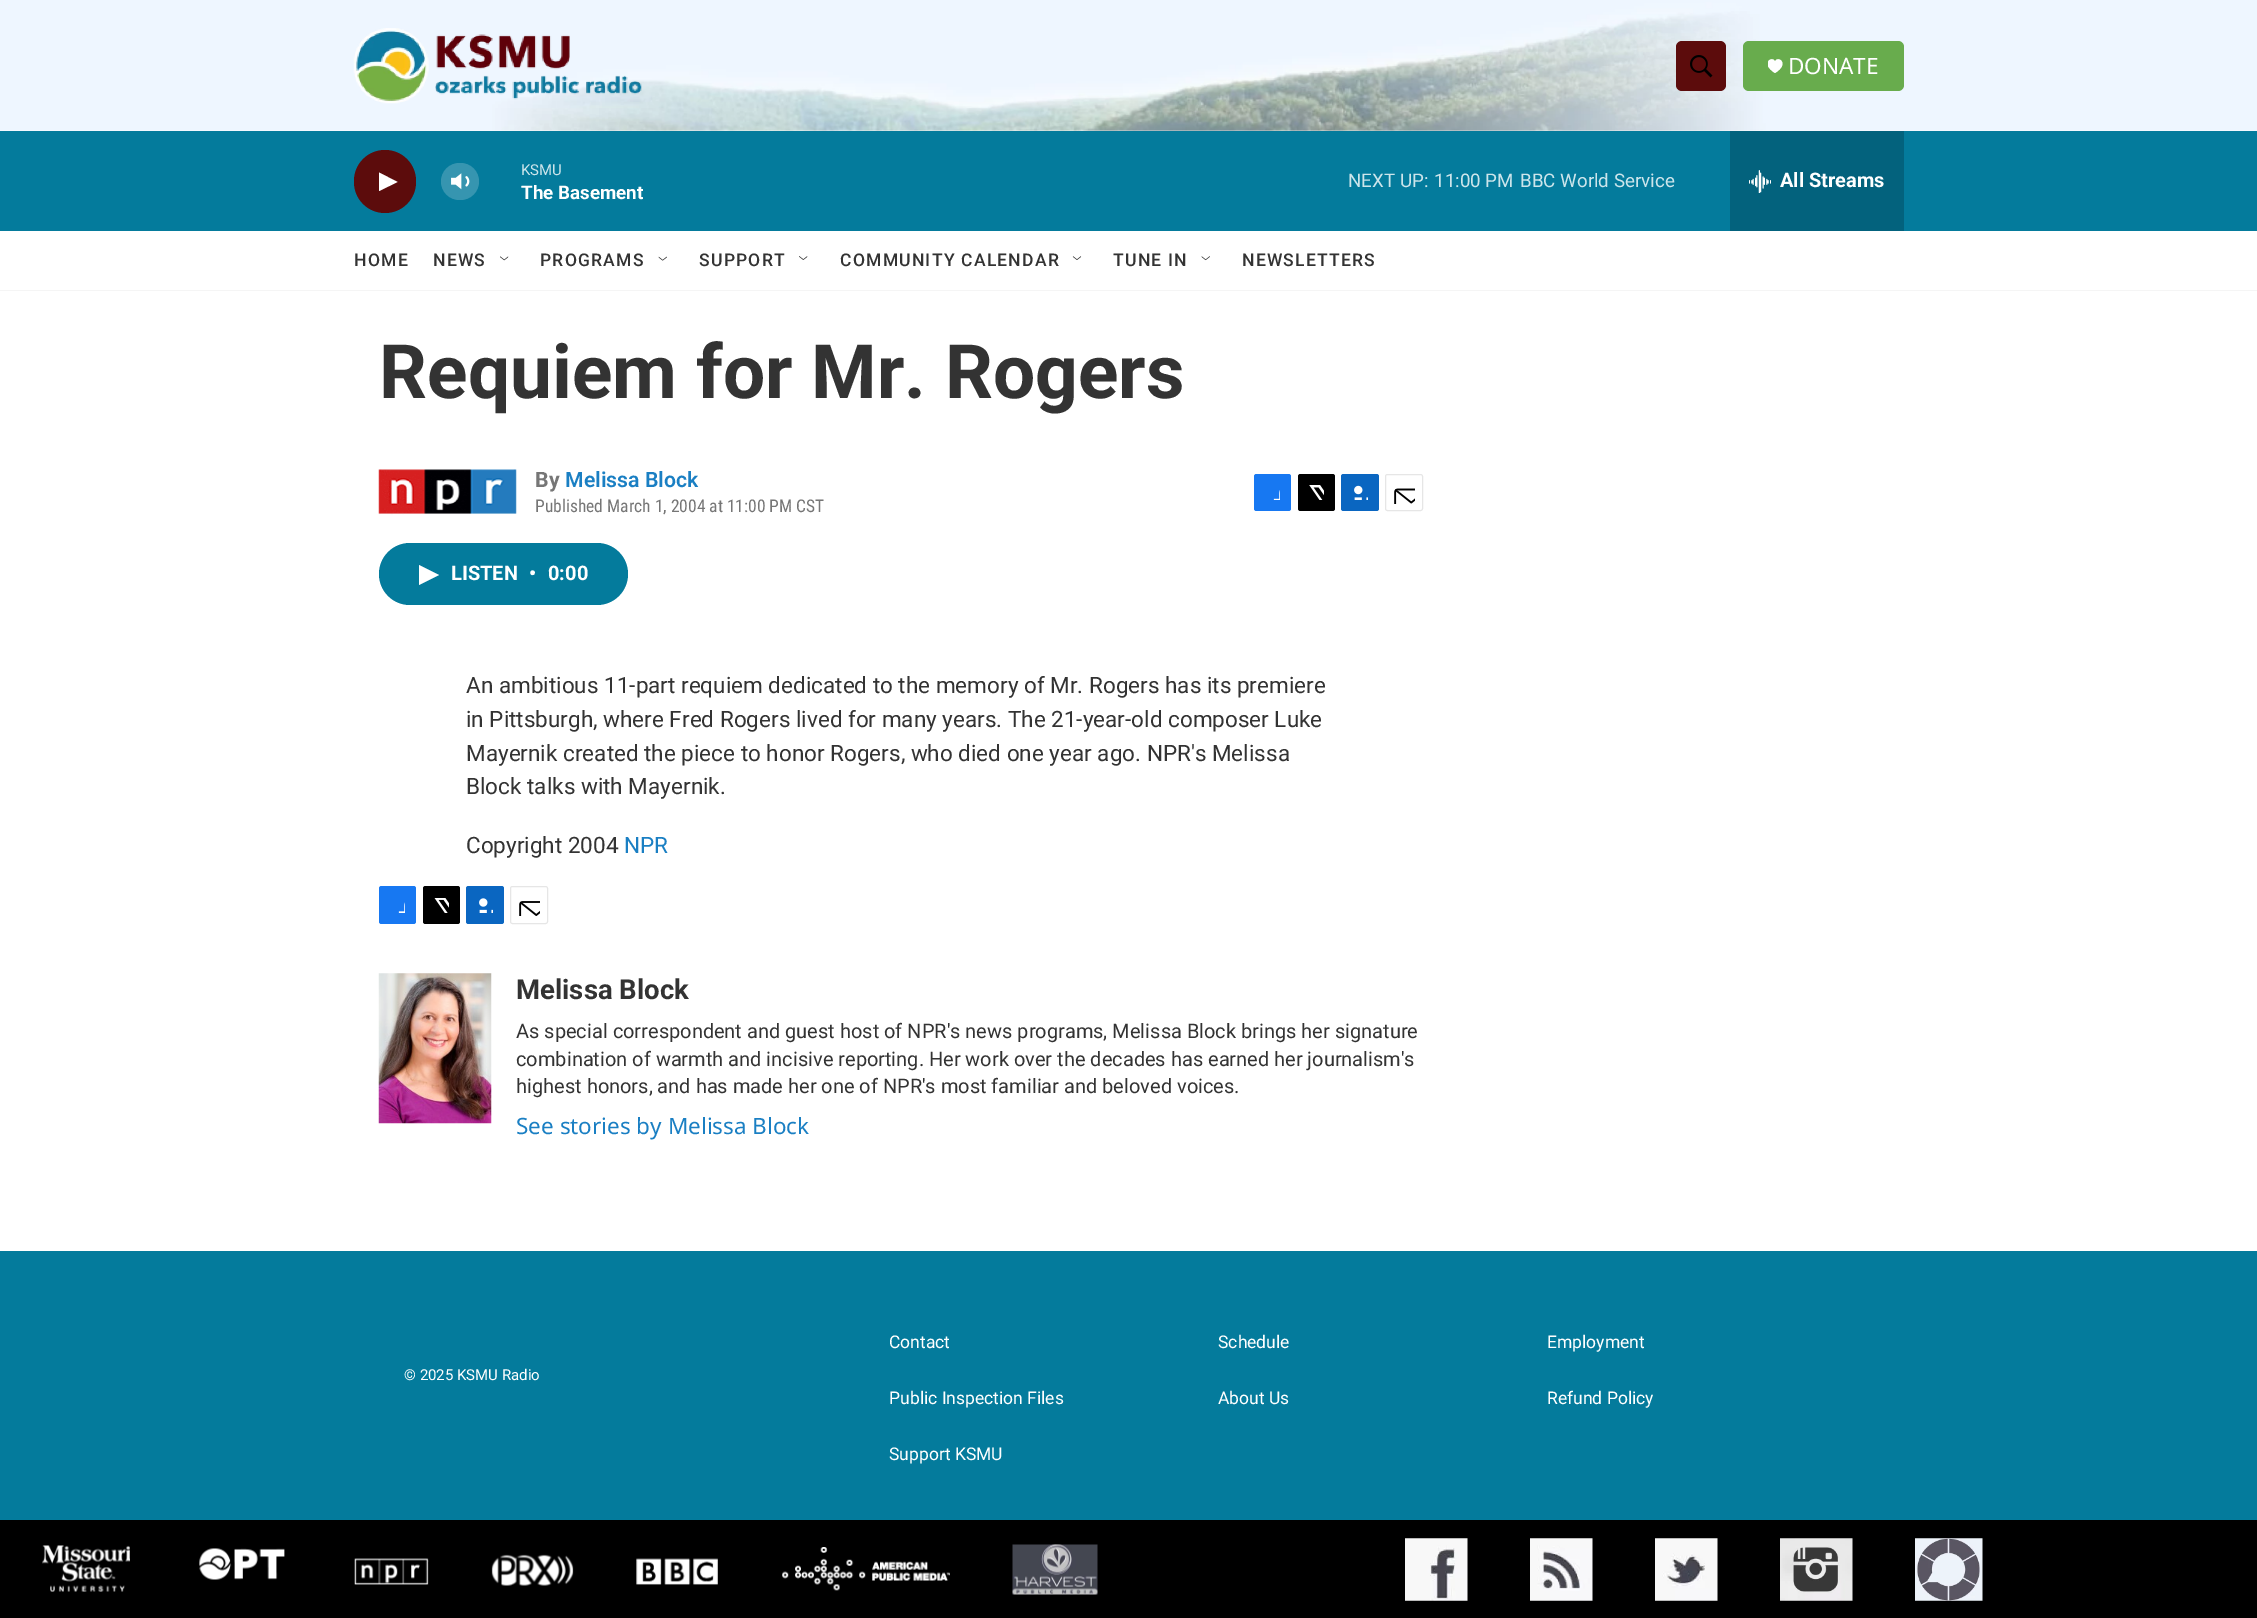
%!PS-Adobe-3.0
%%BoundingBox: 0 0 2257 1618
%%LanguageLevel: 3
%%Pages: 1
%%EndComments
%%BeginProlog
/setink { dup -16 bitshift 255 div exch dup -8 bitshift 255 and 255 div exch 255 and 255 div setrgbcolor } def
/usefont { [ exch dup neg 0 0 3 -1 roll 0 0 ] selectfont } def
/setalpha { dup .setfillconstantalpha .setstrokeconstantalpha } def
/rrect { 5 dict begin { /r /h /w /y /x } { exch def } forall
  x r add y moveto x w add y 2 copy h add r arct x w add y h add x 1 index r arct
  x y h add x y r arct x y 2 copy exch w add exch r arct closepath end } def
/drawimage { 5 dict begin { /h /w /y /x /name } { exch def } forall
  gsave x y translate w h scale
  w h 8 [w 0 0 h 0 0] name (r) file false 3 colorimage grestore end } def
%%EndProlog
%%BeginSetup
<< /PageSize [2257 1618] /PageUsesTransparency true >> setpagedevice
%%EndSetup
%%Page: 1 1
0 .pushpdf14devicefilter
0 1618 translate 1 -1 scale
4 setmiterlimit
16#FFFFFF setink
0 0 2257 1618 rectfill
16#F5F5F5 setink
0 290 2257 1 rectfill
(img1.raw) 0 0 2257 131 drawimage
(img2.raw) 353 28 289 76 drawimage
16#5C0C0C setink
1676 41 50 50 6 rrect fill
(img3.raw) 1690 55 23 23 drawimage
16#68AC4D setink
1743 41 161 50 6 rrect fill
gsave
1768 59 15 15 rectclip
16#FFFFFF setink
1775 61.5 moveto 1772.5 55 1759.5 63.5 1775 73 curveto 1790.5 63.5 1777.5 55 1775 61.5 curveto closepath fill
grestore
/NotoSans-Regular 22.5 usefont
16#FFFFFF setink
1788 74 moveto (DONATE) show
16#047B9C setink
0 131 2257 100 rectfill
16#5C0C0C setink
354 150 62 63 31 rrect fill
16#FFFFFF setink
379 172.5 moveto 397.5 182 lineto 379 191 lineto closepath fill
(img4.raw) 451 173 19 17 drawimage
0.2 setalpha
441 163 38 37 18.5 rrect fill
/Roboto-Regular 15 usefont
1 setalpha
16#CDE5EB setink
521 175 moveto (KSMU) show
/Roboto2-Bold 18.75 usefont
16#FFFFFF setink
521 199 moveto (The Basement) show
/Roboto-Regular 18.75 usefont
16#CDE5EB setink
[
    [(NEXT UP:) 1348 187]
    [(11:00 PM) 1434 187]
    [(BBC World Service) 1520 187]
] { aload pop moveto show } forall
16#03627D setink
1730 131 174 100 rectfill
(img5.raw) 1749 170 22 23 drawimage
/Roboto2-Bold 20 usefont
16#FFFFFF setink
1780 187 moveto (All Streams) show
/Roboto-Medium 17.5 usefont
16#333333 setink
354 266 moveto 1.25 0 (HOME) ashow
433 266 moveto 1.25 0 (NEWS) ashow
(img6.raw) 500 256 9 5 drawimage
540 266 moveto 1.25 0 (PROGRAMS) ashow
(img7.raw) 658 256 9 5 drawimage
699 266 moveto 1.25 0 (SUPPORT) ashow
(img8.raw) 799 256 9 4 drawimage
840 266 moveto 1.25 0 (COMMUNITY CALENDAR) ashow
(img9.raw) 1072 256 10 4 drawimage
1113 266 moveto 1.25 0 (TUNE IN) ashow
(img10.raw) 1201 256 9 5 drawimage
1242 266 moveto 1.25 0 (NEWSLETTERS) ashow
/Roboto-Bold 75 usefont
379 398 moveto (Requiem for Mr. Rogers) show
(img11.raw) 378 469 139 46 drawimage
/Roboto-Bold 21.25 usefont
16#767676 setink
535 487 moveto (By) show
/Roboto-SemiBold 21.25 usefont
16#1A7FC3 setink
565 487 moveto (Melissa Block) show
/RobotoCondensed-Regular 17.5 usefont
16#767676 setink
535 512 moveto (Published March 1, 2004 at 11:00 PM CST) show
16#1778F2 setink
1254 474 37 37 2.5 rrect fill
(img12.raw) 1273 490 7 10 drawimage
16#000000 setink
1298 474 37 37 2.5 rrect fill
(img13.raw) 1309 485 15 15 drawimage
16#0A66C1 setink
1341 474 38 37 2.5 rrect fill
(img14.raw) 1354 485 14 15 drawimage
16#E6E6E6 setink
1385.5 474.5 37 36 2 rrect stroke
(img15.raw) 1394 488 21 16 drawimage
16#047B9C setink
379 543 249 62 31 rrect fill
16#FFFFFF setink
419 565 moveto 439 575 lineto 419 585 lineto closepath fill
/Roboto2-Bold 20 usefont
[
    [(LISTEN) 451 580]
    [(•) 529 580]
    [(0:00) 548 580]
] { aload pop moveto show } forall
/Roboto-Regular 22.5 usefont
16#333333 setink
[
    [(An ambitious 11-part requiem dedicated to the memory of Mr. Rogers has its premiere) 466 693]
    [(in Pittsburgh, where Fred Rogers lived for many years. The 21-year-old composer Luke) 466 727]
    [(Mayernik created the piece to honor Rogers, who died one year ago. NPR's Melissa) 466 761]
    [(Block talks with Mayernik.) 466 794]
    [(Copyright 2004) 466 853]
] { aload pop moveto show } forall
16#1A7FC3 setink
624 853 moveto (NPR) show
16#1778F2 setink
379 886 37 38 2.5 rrect fill
(img16.raw) 398 902 7 11 drawimage
16#000000 setink
423 886 37 38 2.5 rrect fill
(img17.raw) 434 898 15 15 drawimage
16#0A66C1 setink
466 886 38 38 2.5 rrect fill
(img18.raw) 479 898 14 15 drawimage
16#E6E6E6 setink
510.5 886.5 37 37 2 rrect stroke
(img19.raw) 519 901 21 15 drawimage
(img20.raw) 378 973 114 151 drawimage
/Roboto-Bold 27.5 usefont
16#333333 setink
516 999 moveto (Melissa Block) show
/Roboto-Regular 20 usefont
[
    [(As special correspondent and guest host of NPR's news programs, Melissa Block brings her signature) 516 1038]
    [(combination of warmth and incisive reporting. Her work over the decades has earned her journalism's) 516 1066]
    [(highest honors, and has made her one of NPR's most familiar and beloved voices.) 516 1093]
] { aload pop moveto show } forall
/NotoSans-Regular 22.5 usefont
16#1A7FC3 setink
516 1134 moveto (See stories by Melissa Block) show
16#047B9C setink
0 1251 2257 269 rectfill
/Roboto-Regular 15 usefont
16#FFFFFF setink
404 1380 moveto (© 2025 KSMU Radio) show
/Roboto-Regular 17.5 usefont
[
    [(Contact) 889 1348]
    [(Schedule) 1218 1348]
    [(Employment) 1547 1348]
    [(Public Inspection Files) 889 1404]
    [(About Us) 1218 1404]
    [(Refund Policy) 1547 1404]
    [(Support KSMU) 889 1460]
] { aload pop moveto show } forall
16#000000 setink
0 1520 2257 98 rectfill
(img21.raw) 42 1545 88 47 drawimage
(img22.raw) 199 1548 86 32 drawimage
(img23.raw) 354 1558 75 27 drawimage
(img24.raw) 491 1554 83 32 drawimage
(img25.raw) 636 1558 82 27 drawimage
(img26.raw) 782 1547 168 44 drawimage
(img27.raw) 1012 1544 86 51 drawimage
(img28.raw) 1405 1538 63 63 drawimage
(img29.raw) 1530 1538 63 63 drawimage
(img30.raw) 1655 1538 63 63 drawimage
(img31.raw) 1780 1538 73 63 drawimage
(img32.raw) 1915 1538 68 63 drawimage
.poppdf14devicefilter showpage
%%EOF
